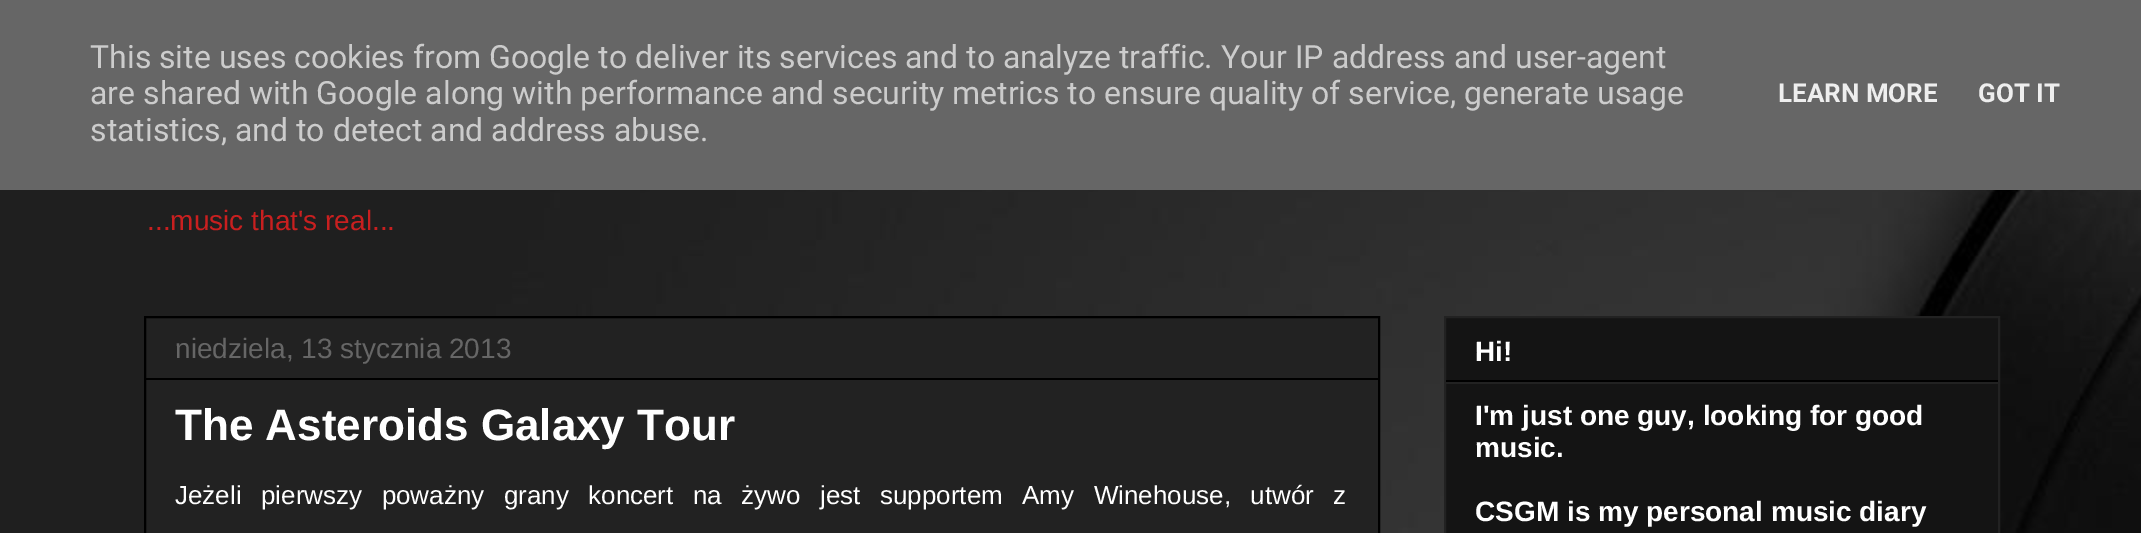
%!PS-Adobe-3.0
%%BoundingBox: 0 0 2141 533
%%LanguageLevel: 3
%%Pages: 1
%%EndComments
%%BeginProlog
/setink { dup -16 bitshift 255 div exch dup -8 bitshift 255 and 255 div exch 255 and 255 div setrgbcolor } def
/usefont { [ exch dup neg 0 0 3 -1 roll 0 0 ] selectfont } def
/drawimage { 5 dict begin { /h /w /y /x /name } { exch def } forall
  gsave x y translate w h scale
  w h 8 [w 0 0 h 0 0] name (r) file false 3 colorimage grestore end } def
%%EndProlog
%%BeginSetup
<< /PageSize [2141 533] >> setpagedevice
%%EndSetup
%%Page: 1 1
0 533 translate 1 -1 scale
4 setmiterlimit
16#FFFFFF setink
0 0 2141 533 rectfill
(img1.raw) 0 190 2141 343 drawimage
16#666666 setink
0 0 2141 190 rectfill
/Roboto-Regular 32 usefont
16#CCCCCC setink
[
    [(This site uses cookies from Google to deliver its services and to analyze traffic. Your IP address and user-agent) 90 68]
    [(are shared with Google along with performance and security metrics to ensure quality of service, generate usage) 90 104]
    [(statistics, and to detect and address abuse.) 90 141]
] { aload pop moveto show } forall
/Roboto-Bold 26 usefont
16#EEEEEE setink
1778 102 moveto (LEARN MORE) show
1978 102 moveto (GOT IT) show
/LiberationSans-Regular 28 usefont
16#C91F1F setink
147 230 moveto (...music that's real...) show
16#222222 setink
145 317 moveto 1379 317 lineto 1379 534 lineto 145 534 lineto closepath gsave fill grestore
16#000000 setink
2 setlinewidth
stroke
146 378 1232 2 rectfill
16#666666 setink
175 358 moveto (niedziela, 13 stycznia 2013) show
/LiberationSans-Bold 44 usefont
16#FFFFFF setink
175 440 moveto (The Asteroids Galaxy Tour) show
/LiberationSans-Regular 26 usefont
175 504 moveto 12.25 0 32 (Jeżeli pierwszy poważny grany koncert na żywo jest supportem Amy Winehouse, utwór z) widthshow
16#141414 setink
1445 317 moveto 1999 317 lineto 1999 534 lineto 1445 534 lineto closepath gsave fill grestore
16#222222 setink
stroke
16#000000 setink
1446 380 552 2 rectfill
/LiberationSans-Bold 28 usefont
16#FFFFFF setink
1475 361 moveto (Hi!) show
16#222222 setink
1446 382 552 2 rectfill
16#FFFFFF setink
[
    [(I'm just one guy, looking for good) 1475 425]
    [(music.) 1475 457]
    [(CSGM is my personal music diary) 1475 521]
] { aload pop moveto show } forall
showpage
%%EOF
